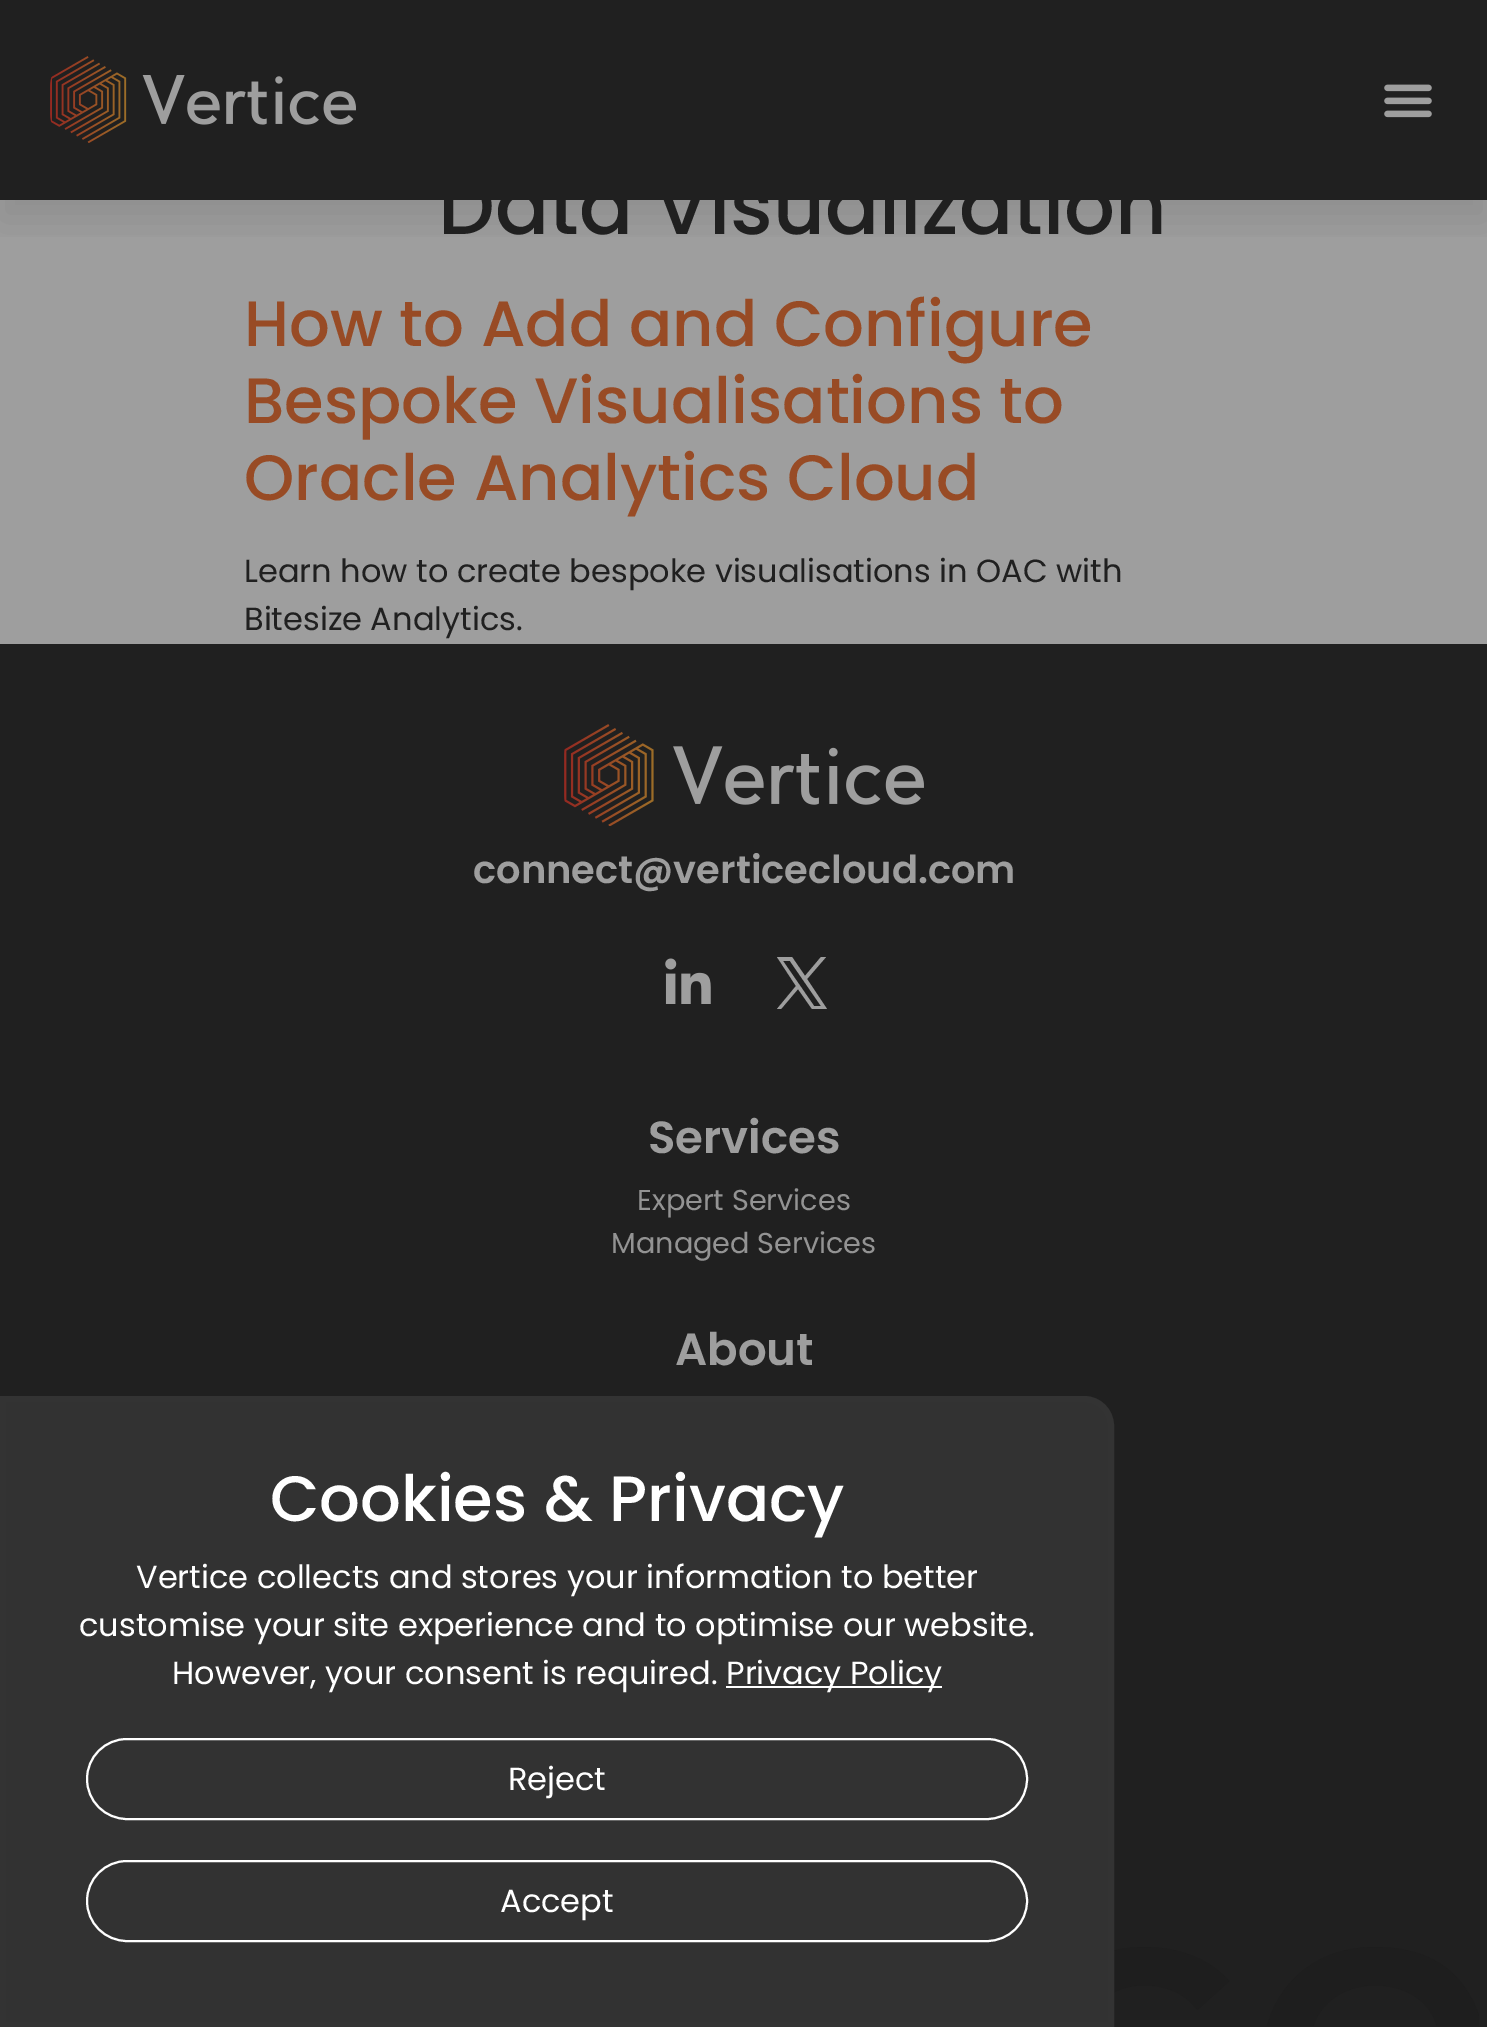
%!PS-Adobe-3.0
%%BoundingBox: 0 0 1487 2027
%%LanguageLevel: 3
%%Pages: 1
%%EndComments
%%BeginProlog
/setink { dup -16 bitshift 255 div exch dup -8 bitshift 255 and 255 div exch 255 and 255 div setrgbcolor } def
/usefont { [ exch dup neg 0 0 3 -1 roll 0 0 ] selectfont } def
/setalpha { dup .setfillconstantalpha .setstrokeconstantalpha } def
/rrect { 5 dict begin { /r /h /w /y /x } { exch def } forall
  x r add y moveto x w add y 2 copy h add r arct x w add y h add x 1 index r arct
  x y h add x y r arct x y 2 copy exch w add exch r arct closepath end } def
/softshadow { 12 dict begin { /a /b /q /h /w /y /x } { exch def } forall gsave /was 0 def
  9 -2 -9 { dup b mul 4 div /e exch def 1 sub .425 mul 2.718 exch exp 1 add a .99 .min exch div /now exch def
    1 1 now sub 1 was sub div sub setalpha /was now def
    w h .min e 2 mul add 0 gt { x e sub y e sub w e 2 mul add h e 2 mul add
      q e add b .6 mul add w h .min 2 div e add .min 0 .max rrect fill } if } for grestore end } def
/drawimage { 5 dict begin { /h /w /y /x /name } { exch def } forall
  gsave x y translate w h scale
  w h 8 [w 0 0 h 0 0] name (r) file false 3 colorimage grestore end } def
%%EndProlog
%%BeginSetup
<< /PageSize [1487 2027] /PageUsesTransparency true >> setpagedevice
%%EndSetup
%%Page: 1 1
0 .pushpdf14devicefilter
0 2027 translate 1 -1 scale
4 setmiterlimit
16#9E9E9E setink
0 0 1487 2027 rectfill
16#202020 setink
0 0 1487 200 rectfill
gsave
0 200 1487 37 rectclip
16#000000 setink
0 20 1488 200 0 20 0.1 softshadow
grestore
(img1.raw) 50 56 306 87 drawimage
(img2.raw) 1384 84 48 34 drawimage
/Poppins-Medium 80 usefont
438 234 moveto (Data Visualization) show
/Poppins-Medium 64 usefont
16#984B25 setink
[
    [(How to Add and Configure) 244 346]
    [(Bespoke Visualisations to) 244 423]
    [(Oracle Analytics Cloud) 244 500]
] { aload pop moveto show } forall
/Poppins-Regular 32 usefont
16#202020 setink
244 582 moveto (Learn how to create bespoke visualisations in OAC with) show
244 630 moveto (Bitesize Analytics.) show
0 644 1487 1383 rectfill
(img3.raw) 1114 1947 365 79 drawimage
(img4.raw) 564 724 360 102 drawimage
/Poppins-SemiBold 38.4 usefont
16#9E9E9E setink
473 883 moveto (connect@verticecloud.com) show
(img5.raw) 665 958 46 46 drawimage
777 957 moveto 796 986 lineto 777 1009 lineto 781 1009 lineto 798 989 lineto 812 1009 lineto 827 1009 lineto 807 979 lineto 826 957 lineto 821 957 lineto 805 976 lineto 792 957 lineto closepath 783 961 moveto 790 961 lineto 821 1006 lineto 814 1006 lineto closepath fill
/Poppins-SemiBold 45 usefont
648 1153 moveto (Services) show
/Poppins-Regular 28.75 usefont
16#939393 setink
637 1210 moveto (Expert Services) show
611 1253 moveto (Managed Services) show
/Poppins-SemiBold 45 usefont
16#9E9E9E setink
675 1365 moveto (About) show
16#323232 setink
3 1399 moveto 1084 1399 lineto 1099 1399 1111 1411 1111 1426 curveto 1111 2025 lineto 3 2025 lineto closepath gsave fill grestore
16#333333 setink
6 setlinewidth
stroke
/Poppins-Medium 64 usefont
16#FFFFFF setink
270 1521 moveto (Cookies & Privacy) show
/Poppins-Regular 32 usefont
[
    [(Vertice collects and stores your information to better) 136 1588]
    [(customise your site experience and to optimise our website.) 79 1636]
    [(However, your consent is required.) 172 1684]
] { aload pop moveto show } forall
726 1686 216 2 rectfill
726 1684 moveto (Privacy Policy) show
2 setlinewidth
87 1739 940 80 40 rrect stroke
508 1790 moveto (Reject) show
87 1861 940 80 40 rrect stroke
500 1912 moveto (Accept) show
.poppdf14devicefilter showpage
%%EOF
